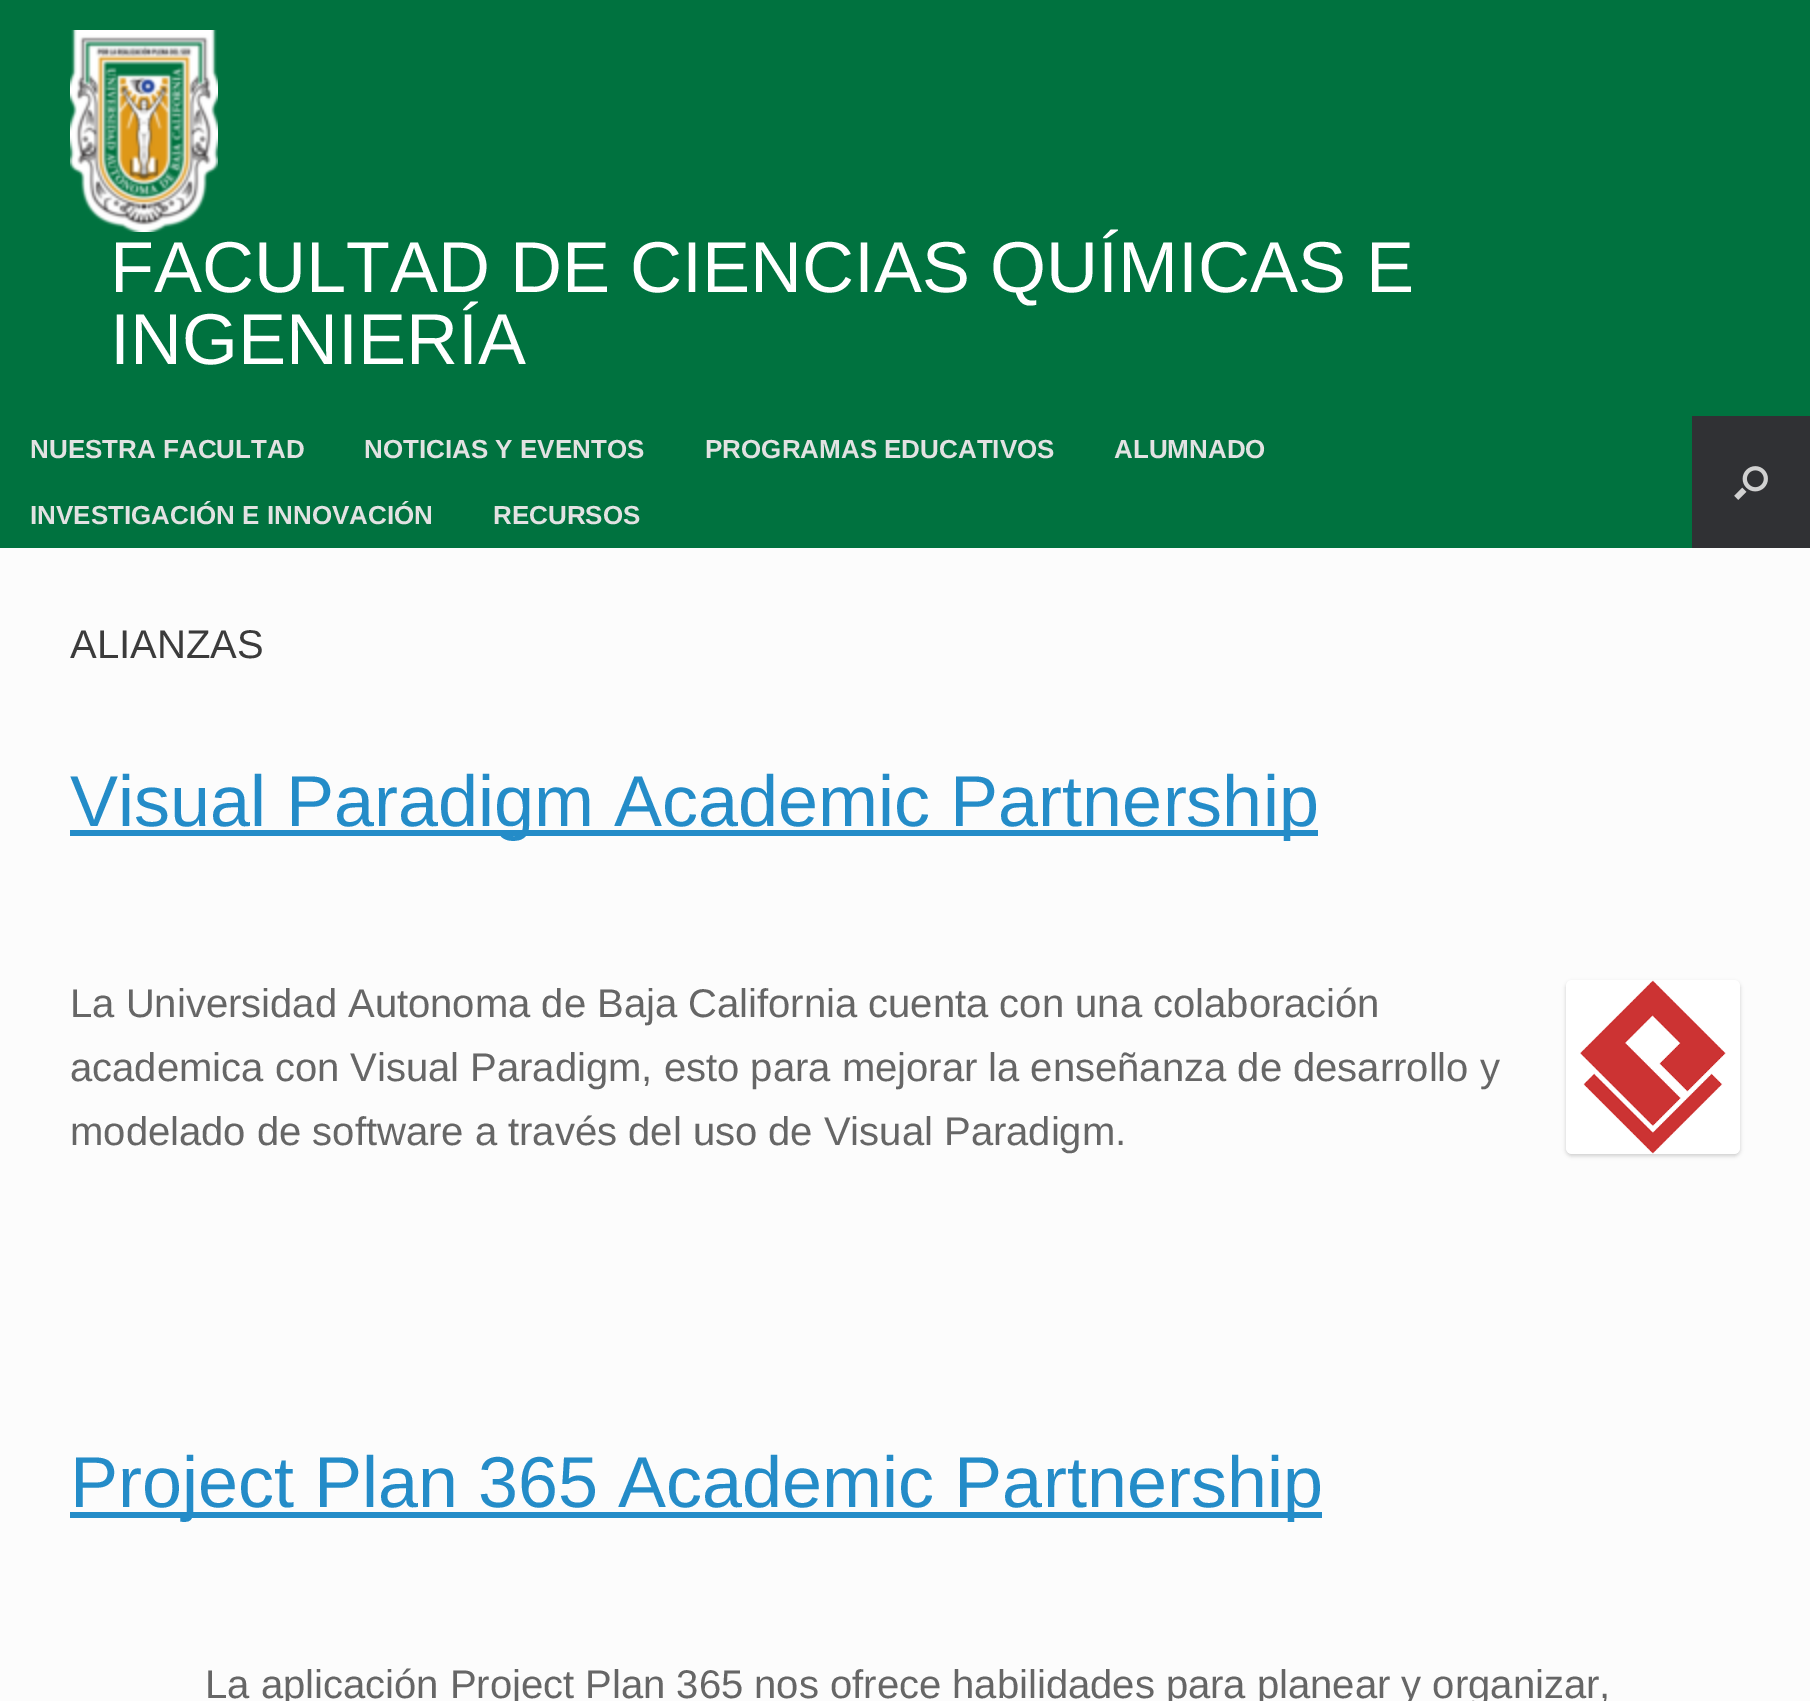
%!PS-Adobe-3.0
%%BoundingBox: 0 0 1810 1701
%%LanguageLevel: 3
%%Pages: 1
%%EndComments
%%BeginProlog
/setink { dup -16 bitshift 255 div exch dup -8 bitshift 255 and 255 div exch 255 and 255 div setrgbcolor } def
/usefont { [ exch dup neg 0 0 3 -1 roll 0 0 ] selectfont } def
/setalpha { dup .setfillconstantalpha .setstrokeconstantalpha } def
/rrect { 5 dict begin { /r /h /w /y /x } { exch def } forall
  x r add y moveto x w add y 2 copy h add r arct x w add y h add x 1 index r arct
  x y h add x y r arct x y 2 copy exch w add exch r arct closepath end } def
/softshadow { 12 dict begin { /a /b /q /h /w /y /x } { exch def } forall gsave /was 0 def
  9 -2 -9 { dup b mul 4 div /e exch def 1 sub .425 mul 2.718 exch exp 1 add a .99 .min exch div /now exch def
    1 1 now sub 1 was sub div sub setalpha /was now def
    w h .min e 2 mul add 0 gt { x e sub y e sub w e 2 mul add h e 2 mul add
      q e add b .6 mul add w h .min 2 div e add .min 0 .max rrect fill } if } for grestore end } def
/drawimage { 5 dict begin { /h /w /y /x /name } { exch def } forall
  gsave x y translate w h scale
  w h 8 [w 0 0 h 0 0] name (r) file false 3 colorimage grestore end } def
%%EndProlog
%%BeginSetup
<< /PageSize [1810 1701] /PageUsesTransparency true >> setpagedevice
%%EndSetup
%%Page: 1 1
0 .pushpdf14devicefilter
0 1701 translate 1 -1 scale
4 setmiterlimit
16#00723F setink
0 0 1810 1701 rectfill
(img1.raw) 70 30 148 202 drawimage
/LiberationSans-Regular 72 usefont
16#FFFFFF setink
110 292 moveto (FACULTAD DE CIENCIAS QUÍMICAS E) show
110 364 moveto (INGENIERÍA) show
/LiberationSans-Bold 26 usefont
16#E2E2E2 setink
[
    [(NUESTRA FACULTAD) 30 458]
    [(NOTICIAS Y EVENTOS) 364 458]
    [(PROGRAMAS EDUCATIVOS) 705 458]
    [(ALUMNADO) 1114 458]
    [(INVESTIGACIÓN E INNOVACIÓN) 30 524]
    [(RECURSOS) 493 524]
] { aload pop moveto show } forall
16#303134 setink
1692 416 118 132 rectfill
(img2.raw) 1734 466 34 34 drawimage
16#FCFCFC setink
0 548 1810 1153 rectfill
/LiberationSans-Regular 40 usefont
16#3B3B3B setink
70 658 moveto (ALIANZAS) show
16#248CC8 setink
70 830 1248 6 rectfill
/LiberationSans-Regular 72 usefont
70 826 moveto (Visual Paradigm Academic Partnership) show
/LiberationSans-Regular 40 usefont
16#666666 setink
[
    [(La Universidad Autonoma de Baja California cuenta con una colaboración) 70 1017]
    [(academica con Visual Paradigm, esto para mejorar la enseñanza de desarrollo y) 70 1081]
    [(modelado de software a través del uso de Visual Paradigm.) 70 1145]
] { aload pop moveto show } forall
16#000000 setink
1566 982 174 174 6 2 0.18 softshadow
(img3.raw) 1566 980 174 174 drawimage
16#248CC8 setink
70 1512 1252 6 rectfill
/LiberationSans-Regular 72 usefont
70 1507 moveto (Project Plan 365 Academic Partnership) show
/LiberationSans-Regular 40 usefont
16#666666 setink
205 1698 moveto (La aplicación Project Plan 365 nos ofrece habilidades para planear y organizar,) show
.poppdf14devicefilter showpage
%%EOF
